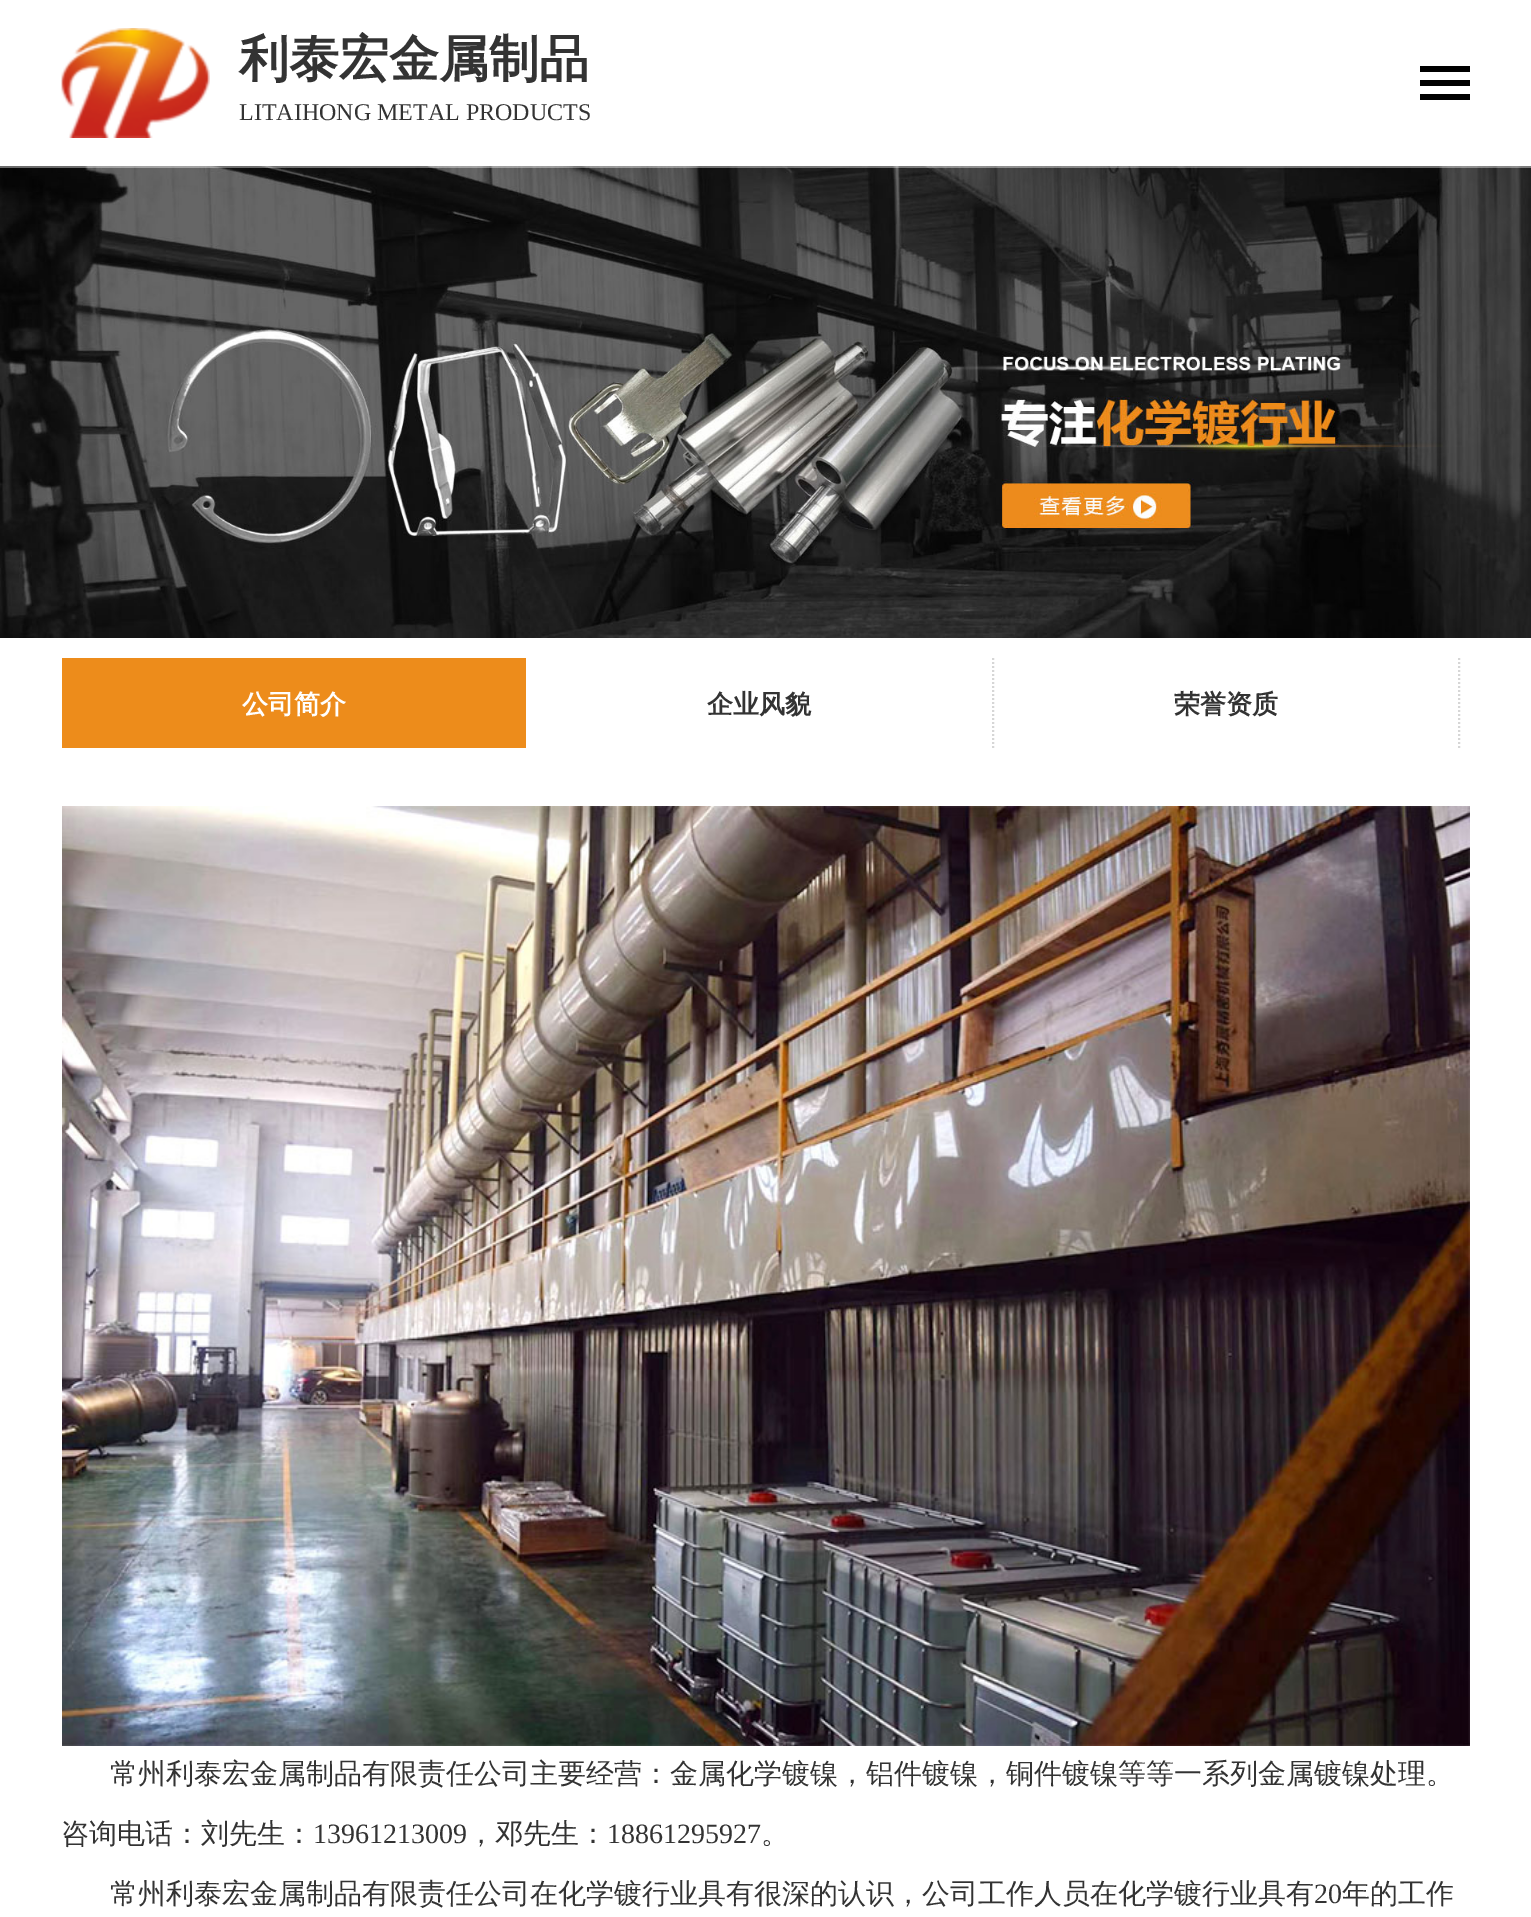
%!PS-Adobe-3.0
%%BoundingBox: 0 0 1531 1917
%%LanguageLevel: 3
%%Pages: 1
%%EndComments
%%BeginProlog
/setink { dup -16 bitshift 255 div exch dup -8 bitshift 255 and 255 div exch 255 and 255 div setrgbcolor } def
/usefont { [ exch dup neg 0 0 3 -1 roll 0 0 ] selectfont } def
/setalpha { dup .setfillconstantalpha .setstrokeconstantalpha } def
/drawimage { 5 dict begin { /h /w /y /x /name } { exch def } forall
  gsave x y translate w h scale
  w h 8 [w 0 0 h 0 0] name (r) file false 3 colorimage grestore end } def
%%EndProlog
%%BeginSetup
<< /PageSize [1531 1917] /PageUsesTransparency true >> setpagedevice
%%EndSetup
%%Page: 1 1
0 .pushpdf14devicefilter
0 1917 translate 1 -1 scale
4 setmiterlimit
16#FFFFFF setink
0 0 1531 1917 rectfill
(img2.raw) 0 166 1531 472 drawimage
0.4 setalpha
0 166 1531 2 rectfill
1 setalpha
(img1.raw) 61 28 149 110 drawimage
/WenQuanYiZenHei-Bold 50 usefont
16#333333 setink
239 76 moveto (利泰宏金属制品) show
/LiberationSerif-Regular 24 usefont
239 120 moveto (LITAIHONG METAL PRODUCTS) show
[
    [1420 66 50 6 16#000000]
    [1420 80 50 6 16#000000]
    [1420 94 50 6 16#000000]
    [62 658 464 90 16#ED8C1B]
] { aload pop setink rectfill } forall
/WenQuanYiZenHei-Bold 26 usefont
16#FFFFFF setink
242 713 moveto (公司简介) show
16#D6D6D6 setink
2 setlinewidth
[2 2] 0 setdash
993 658 moveto 993 748 lineto stroke
16#333333 setink
707 713 moveto (企业风貌) show
16#D6D6D6 setink
1459 658 moveto 1459 748 lineto stroke
16#333333 setink
1174 713 moveto (荣誉资质) show
(img3.raw) 62 806 1408 940 drawimage
/WenQuanYiZenHei-Medium 28 usefont
110 1783 moveto (常州利泰宏金属制品有限责任公司主要经营：金属化学镀镍，铝件镀镍，铜件镀镍等等一系列金属镀镍处理。) show
61 1843 moveto (咨询电话：刘先生：) show
/LiberationSerif-Regular 28 usefont
313 1843 moveto (13961213009) show
/WenQuanYiZenHei-Medium 28 usefont
467 1843 moveto (，邓先生：) show
/LiberationSerif-Regular 28 usefont
607 1843 moveto (18861295927) show
/WenQuanYiZenHei-Medium 28 usefont
761 1843 moveto (。) show
110 1903 moveto (常州利泰宏金属制品有限责任公司在化学镀行业具有很深的认识，公司工作人员在化学镀行业具有) show
/LiberationSerif-Regular 28 usefont
1314 1903 moveto (20) show
/WenQuanYiZenHei-Medium 28 usefont
1342 1903 moveto (年的工作) show
.poppdf14devicefilter showpage
%%EOF
